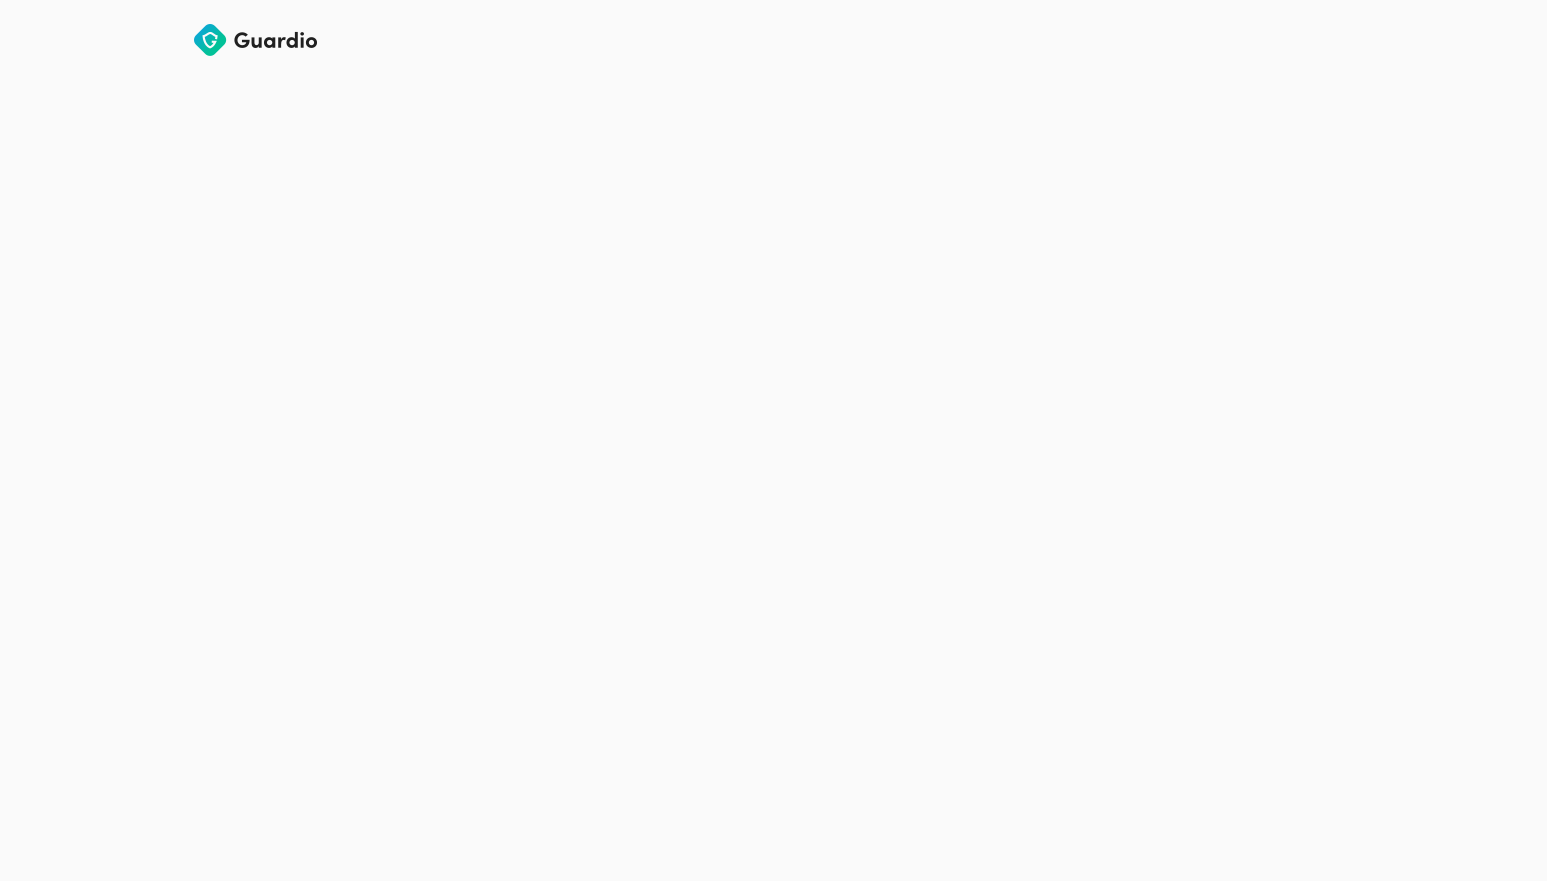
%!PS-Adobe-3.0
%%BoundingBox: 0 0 1547 881
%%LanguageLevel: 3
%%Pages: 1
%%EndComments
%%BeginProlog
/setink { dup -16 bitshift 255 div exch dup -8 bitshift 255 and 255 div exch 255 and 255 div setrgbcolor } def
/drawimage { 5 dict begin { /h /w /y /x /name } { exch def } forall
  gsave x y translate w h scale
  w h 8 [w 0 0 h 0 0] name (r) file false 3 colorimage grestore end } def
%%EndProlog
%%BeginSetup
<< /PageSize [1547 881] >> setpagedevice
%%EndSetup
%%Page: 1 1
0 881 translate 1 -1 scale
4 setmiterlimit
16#FAFAFA setink
0 0 1547 881 rectfill
(img1.raw) 194 24 123 32 drawimage
showpage
%%EOF
